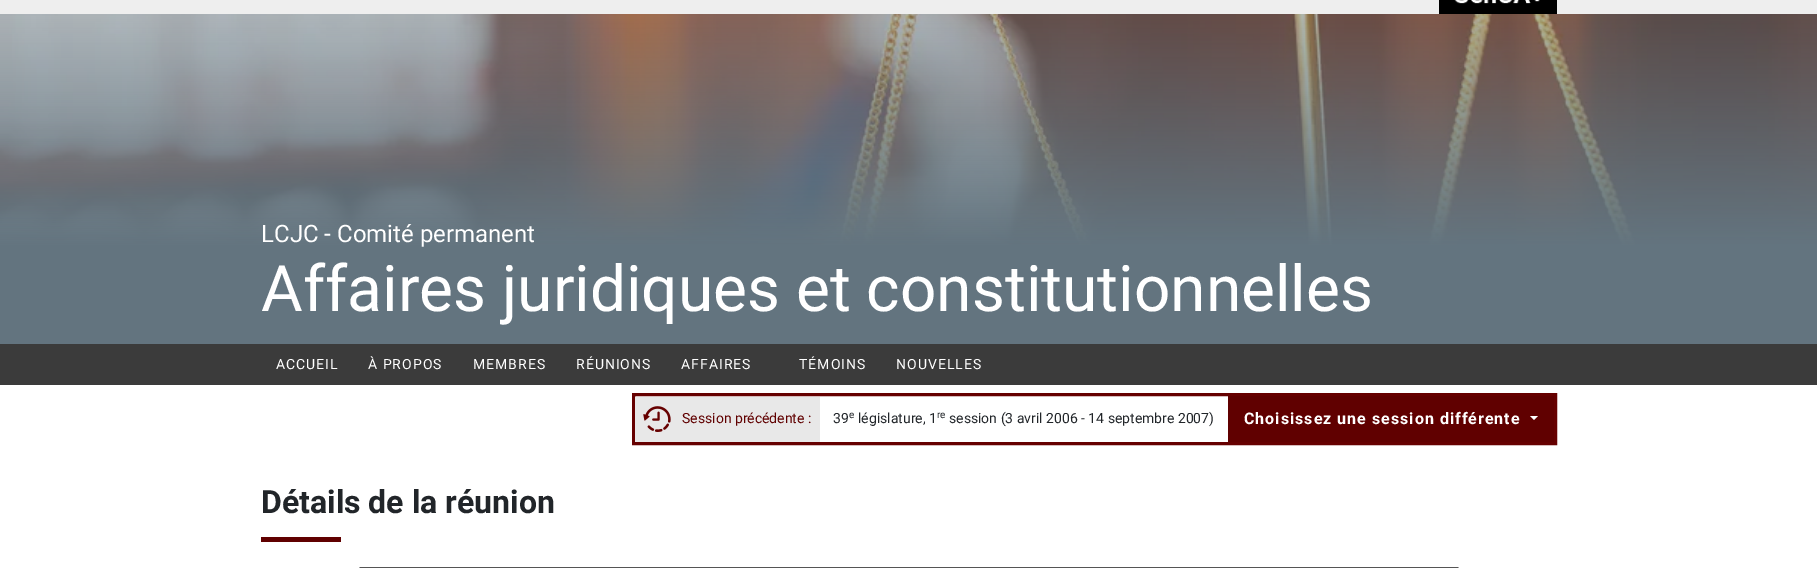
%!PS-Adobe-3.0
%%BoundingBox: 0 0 1817 568
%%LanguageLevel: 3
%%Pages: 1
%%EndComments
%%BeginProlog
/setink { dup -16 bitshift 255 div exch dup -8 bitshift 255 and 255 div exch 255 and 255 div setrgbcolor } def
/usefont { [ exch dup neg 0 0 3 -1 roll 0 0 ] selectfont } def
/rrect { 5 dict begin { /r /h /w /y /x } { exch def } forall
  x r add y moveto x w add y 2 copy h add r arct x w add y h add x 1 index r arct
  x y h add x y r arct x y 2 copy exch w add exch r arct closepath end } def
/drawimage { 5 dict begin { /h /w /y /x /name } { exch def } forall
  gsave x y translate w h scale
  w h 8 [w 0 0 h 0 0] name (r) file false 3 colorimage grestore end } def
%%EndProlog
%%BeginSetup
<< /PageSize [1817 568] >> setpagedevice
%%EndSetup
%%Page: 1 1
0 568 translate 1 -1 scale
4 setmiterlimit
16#FFFFFF setink
0 0 1817 568 rectfill
16#EEEEEE setink
0 0 1817 14 rectfill
16#000000 setink
1439 0 118 14 rectfill
(img1.raw) 1454 0 86 4 drawimage
(img2.raw) 0 14 1817 330 drawimage
/Roboto-Regular 24 usefont
16#FFFFFF setink
261 242 moveto (LCJC - Comité permanent) show
/Roboto-Regular 64 usefont
261 311 moveto (Affaires juridiques et constitutionnelles) show
16#3B3B3B setink
0 344 1817 41 rectfill
/Roboto-Regular 14 usefont
16#FFFFFF setink
276 369 moveto 1 0 (ACCUEIL) ashow
368 369 moveto 1 0 (À PROPOS) ashow
473 369 moveto 1 0 (MEMBRES) ashow
576 369 moveto 1 0 (RÉUNIONS) ashow
681 369 moveto 1 0 (AFFAIRES) ashow
799 369 moveto 1 0 (TÉMOINS) ashow
896 369 moveto 1 0 (NOUVELLES) ashow
16#660000 setink
3 setlinewidth
633.5 394.5 922 49 rectstroke
16#E8E8E8 setink
635 397 185 45 rectfill
(img3.raw) 643 406 28 26 drawimage
16#600000 setink
682 423 moveto (Session précédente :) show
16#212529 setink
833 423 moveto (39) show
/Roboto-Regular 10 usefont
849 418 moveto (e) show
/Roboto-Regular 14 usefont
858 423 moveto (législature, 1) show
/Roboto-Regular 10 usefont
937 418 moveto (re) show
/Roboto-Regular 14 usefont
949 423 moveto (session \(3 avril 2006 - 14 septembre 2007\)) show
16#600000 setink
1228 396 326 46 rectfill
/Roboto-Bold 16 usefont
16#FFFFFF setink
1244 424 moveto 1 0 (Choisissez une session différente) ashow
1530 416 moveto 1538 416 lineto 1534 420 lineto closepath fill
/Roboto-Bold 32 usefont
16#212529 setink
261 513 moveto (Détails de la réunion) show
16#600000 setink
261 537 80 5 rectfill
16#555555 setink
1 setlinewidth
359.5 567.5 1099 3 1.5 rrect stroke
showpage
%%EOF
